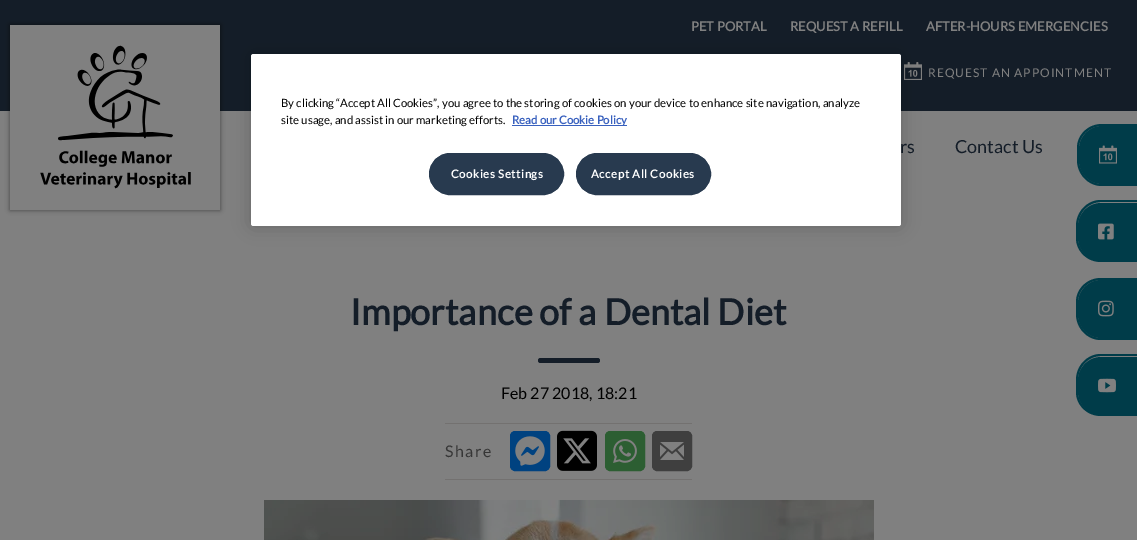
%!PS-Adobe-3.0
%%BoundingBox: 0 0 1137 540
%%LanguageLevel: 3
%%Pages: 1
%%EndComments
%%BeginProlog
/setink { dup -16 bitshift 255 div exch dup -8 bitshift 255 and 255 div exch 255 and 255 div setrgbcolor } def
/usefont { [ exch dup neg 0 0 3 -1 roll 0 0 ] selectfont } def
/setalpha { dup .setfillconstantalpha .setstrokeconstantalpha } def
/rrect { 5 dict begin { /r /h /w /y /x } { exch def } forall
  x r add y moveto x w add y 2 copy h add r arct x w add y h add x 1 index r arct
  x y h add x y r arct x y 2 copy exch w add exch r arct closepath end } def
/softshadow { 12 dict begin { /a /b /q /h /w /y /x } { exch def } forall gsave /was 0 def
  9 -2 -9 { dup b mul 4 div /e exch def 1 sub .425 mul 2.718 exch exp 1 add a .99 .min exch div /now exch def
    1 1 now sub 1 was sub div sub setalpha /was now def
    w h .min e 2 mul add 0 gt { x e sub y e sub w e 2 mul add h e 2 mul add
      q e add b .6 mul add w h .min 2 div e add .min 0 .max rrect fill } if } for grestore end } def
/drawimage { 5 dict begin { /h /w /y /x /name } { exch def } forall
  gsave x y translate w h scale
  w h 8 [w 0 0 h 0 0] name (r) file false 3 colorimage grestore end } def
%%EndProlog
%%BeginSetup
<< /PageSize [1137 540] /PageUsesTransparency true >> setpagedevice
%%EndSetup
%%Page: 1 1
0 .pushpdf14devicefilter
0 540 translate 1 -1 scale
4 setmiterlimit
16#808080 setink
0 0 1137 540 rectfill
16#141D28 setink
0 0 1137 111 rectfill
/Lato-Bold 13 usefont
16#808080 setink
[
    [(PET PORTAL) 691 31]
    [(REQUEST A REFILL) 790 31]
    [(AFTER-HOURS EMERGENCIES) 926 31]
] { aload pop moveto show } forall
16#000000 setink
10 25 210 185 0 2.5 0.5 softshadow
16#808080 setink
10 25 210 185 rectfill
(img1.raw) 40 45 151 144 drawimage
(img2.raw) 904 62 18 18 drawimage
/Lato-Regular 12 usefont
928 77 moveto 1 0 (REQUEST AN APPOINTMENT) ashow
/Lato-Regular 18 usefont
16#141D28 setink
900 153 moveto (rs) show
955 153 moveto (Contact Us) show
16#003C49 setink
1102 126 moveto 1137 126 lineto 1137 184 lineto 1102 184 lineto 1089.5 184 1079 173.5 1079 161 curveto 1079 149 lineto 1079 136.5 1089.5 126 1102 126 curveto closepath fill
1102 124 moveto 1137 124 lineto 1137 186 lineto 1102 186 lineto 1088 186 1077 174 1077 160 curveto 1077 148 lineto 1077 135 1088 124 1102 124 curveto closepath 1102 126 moveto 1137 126 lineto 1137 184 lineto 1102 184 lineto 1089 184 1079 173 1079 160 curveto 1079 148 lineto 1079 136 1089 126 1102 126 curveto closepath eofill
(img3.raw) 1099 145 18 19 drawimage
1101 203 moveto 1137 203 lineto 1137 261 lineto 1101 261 lineto 1088.5 261 1078 250.5 1078 238 curveto 1078 226 lineto 1078 213.5 1088.5 203 1101 203 curveto closepath fill
1101 200 moveto 1137 200 lineto 1137 262 lineto 1101 262 lineto 1087 262 1076 251 1076 238 curveto 1076 226 lineto 1076 212 1087 200 1101 200 curveto closepath 1101 202 moveto 1137 202 lineto 1137 260 lineto 1101 260 lineto 1088 260 1078 250 1078 238 curveto 1078 226 lineto 1078 213 1088 202 1101 202 curveto closepath eofill
(img4.raw) 1098 223 16 17 drawimage
1101 280 moveto 1137 280 lineto 1137 338 lineto 1101 338 lineto 1088.5 338 1078 327.5 1078 315 curveto 1078 303 lineto 1078 290.5 1088.5 280 1101 280 curveto closepath fill
1101 278 moveto 1137 278 lineto 1137 340 lineto 1101 340 lineto 1087 340 1076 328 1076 314 curveto 1076 302 lineto 1076 289 1087 278 1101 278 curveto closepath 1101 280 moveto 1137 280 lineto 1137 338 lineto 1101 338 lineto 1088 338 1078 327 1078 314 curveto 1078 302 lineto 1078 290 1088 280 1101 280 curveto closepath eofill
(img5.raw) 1098 300 16 17 drawimage
1101 357 moveto 1137 357 lineto 1137 415 lineto 1101 415 lineto 1088.5 415 1078 404.5 1078 392 curveto 1078 380 lineto 1078 367.5 1088.5 357 1101 357 curveto closepath fill
1101 354 moveto 1137 354 lineto 1137 416 lineto 1101 416 lineto 1087 416 1076 405 1076 392 curveto 1076 380 lineto 1076 366 1087 354 1101 354 curveto closepath 1101 356 moveto 1137 356 lineto 1137 414 lineto 1101 414 lineto 1088 414 1078 404 1078 392 curveto 1078 380 lineto 1078 367 1088 356 1101 356 curveto closepath eofill
(img6.raw) 1098 378 18 15 drawimage
/Lato-Bold 36 usefont
16#141D28 setink
350 325 moveto (Importance of a Dental Diet) show
538 358 62 5 2.5 rrect fill
/Lato-Regular 16 usefont
16#000000 setink
501 399 moveto (Feb 27 2018, 18:21) show
16#737170 setink
445 423 247 1 rectfill
445 479 247 1 rectfill
16#363636 setink
445 457 moveto 1.5 0 (Share) ashow
16#004280 setink
510.5 431.5 39 39 4.5 rrect gsave fill grestore
stroke
(img7.raw) 515 436 30 30 drawimage
(img8.raw) 557 430 40 41 drawimage
16#2C5E32 setink
605.5 431.5 39 39 4.5 rrect gsave fill grestore
stroke
(img9.raw) 613 439 24 24 drawimage
16#3F3F3F setink
652.5 431.5 39 39 4.5 rrect gsave fill grestore
stroke
(img10.raw) 660 442 24 18 drawimage
(img11.raw) 264 500 610 40 drawimage
16#000000 setink
251 54 650 172 2.5 9 0.2 softshadow
16#FFFFFF setink
251 54 650 172 2.5 rrect fill
/Lato-Regular 11.38 usefont
16#000000 setink
281 107 moveto (By clicking “Accept All Cookies”, you agree to the storing of cookies on your device to enhance site navigation, analyze) show
281 124 moveto (site usage, and assist in our marketing efforts.) show
16#3860BE setink
512 125 115 1 rectfill
/Lato-Bold 11.38 usefont
512 124 moveto (Read our Cookie Policy) show
16#283A4F setink
429.5 153.5 134 41 20.5 rrect gsave fill grestore
stroke
16#FFFFFF setink
451 178 moveto 0.6 0 (Cookies Settings) ashow
16#283A4F setink
576.5 153.5 134 41 20.5 rrect gsave fill grestore
stroke
16#FFFFFF setink
591 178 moveto 0.6 0 (Accept All Cookies) ashow
.poppdf14devicefilter showpage
%%EOF
